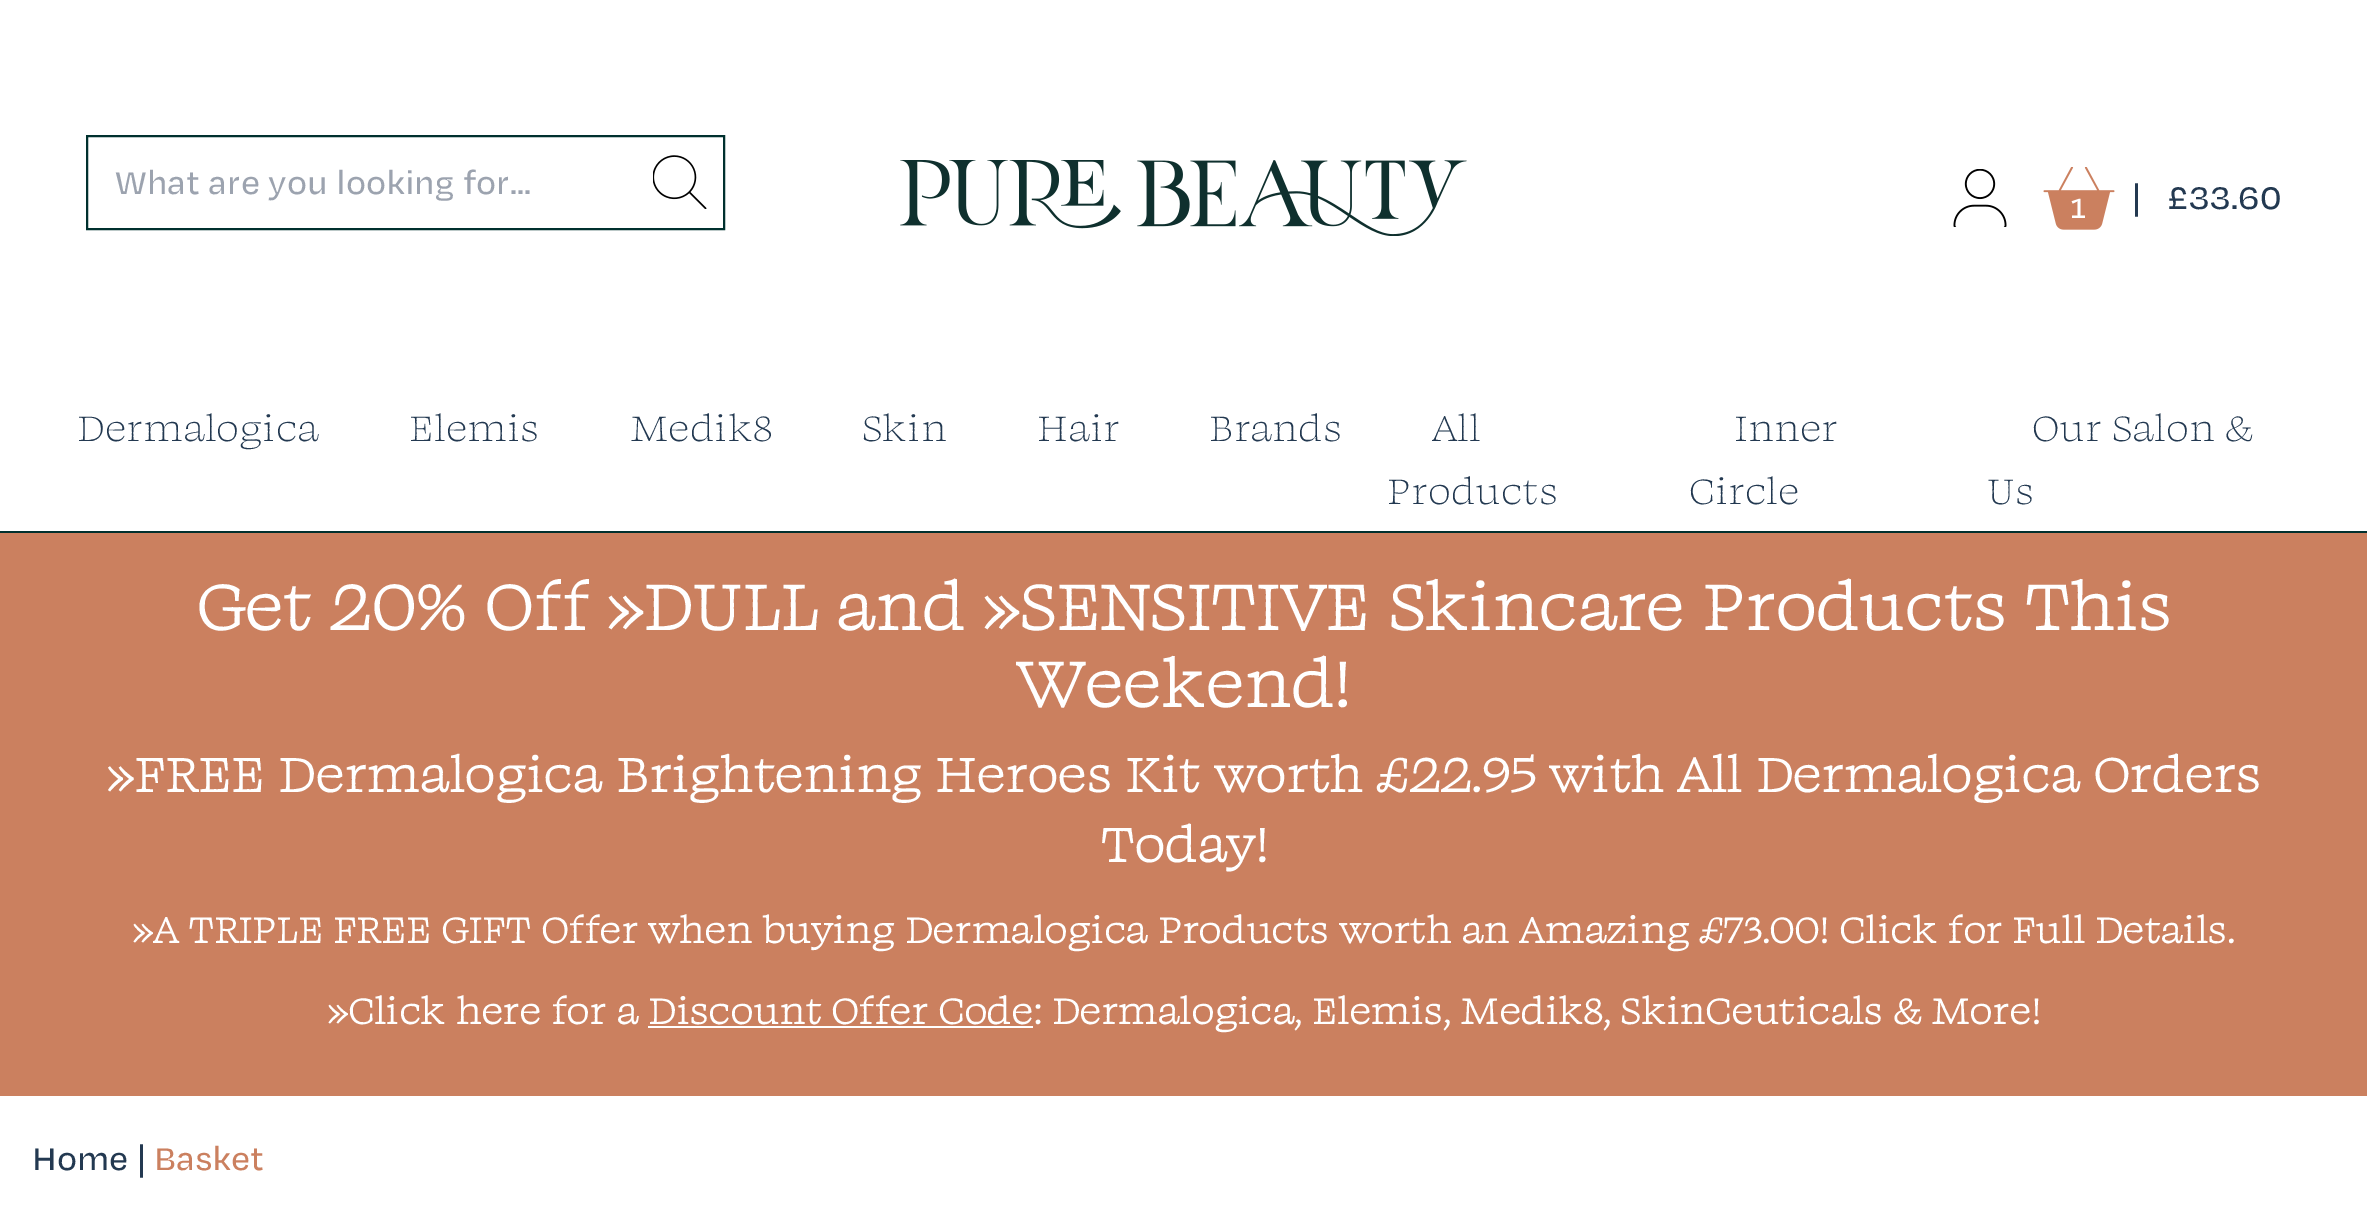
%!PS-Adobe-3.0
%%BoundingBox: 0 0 2367 1207
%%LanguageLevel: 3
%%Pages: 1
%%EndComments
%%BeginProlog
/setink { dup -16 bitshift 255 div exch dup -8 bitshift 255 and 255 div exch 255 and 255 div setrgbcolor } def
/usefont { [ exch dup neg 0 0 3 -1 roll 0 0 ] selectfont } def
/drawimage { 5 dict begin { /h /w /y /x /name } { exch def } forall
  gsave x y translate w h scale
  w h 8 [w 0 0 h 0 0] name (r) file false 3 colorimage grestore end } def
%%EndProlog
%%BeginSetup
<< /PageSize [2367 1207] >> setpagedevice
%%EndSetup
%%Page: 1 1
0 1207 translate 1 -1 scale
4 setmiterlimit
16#FFFFFF setink
0 0 2367 1207 rectfill
16#00302E setink
2 setlinewidth
87 136 637 93 rectstroke
/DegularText-Medium 36 usefont
16#9CA3AF setink
115 194 moveto (What are you looking for...) show
(img1.raw) 653 155 54 54 drawimage
(img2.raw) 900 160 567 76 drawimage
(img3.raw) 1953 169 54 58 drawimage
(img4.raw) 2043 167 72 63 drawimage
/DegularText-Medium 32 usefont
16#FFFFFF setink
2070 218 moveto (1) show
/DegularText-Medium 36 usefont
16#233951 setink
2132 209 moveto (|) show
2168 209 moveto (£33.60) show
16#00302E setink
0 531 2367 2 rectfill
/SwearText-Light 40.5 usefont
16#233951 setink
[
    [(Dermalogica) 77 441]
    [(Elemis) 409 441]
    [(Medik8) 630 441]
    [(Skin) 862 441]
    [(Hair) 1037 441]
    [(Brands) 1209 441]
    [(All) 1432 441]
    [(Products) 1387 504]
    [(Inner) 1734 441]
    [(Circle) 1689 504]
    [(Our Salon &) 2032 441]
    [(Us) 1987 504]
] { aload pop moveto show } forall
16#CB805F setink
0 533 2367 563 rectfill
/SwearText-Bold 72 usefont
16#FFFFFF setink
196 630 moveto (Get 20% Off »DULL and »SENSITIVE Skincare Products This) show
1016 707 moveto (Weekend!) show
/SwearText-Bold 54 usefont
106 792 moveto (»FREE Dermalogica Brightening Heroes Kit worth £22.95 with All Dermalogica Orders) show
1100 862 moveto (Today!) show
/SwearText-Bold 40.5 usefont
132 943 moveto (»A TRIPLE FREE GIFT Offer when buying Dermalogica Products worth an Amazing £73.00! Click for Full Details.) show
327 1024 moveto (»Click here for a Discount Offer Code: Dermalogica, Elemis, Medik8, SkinCeuticals & More!) show
648 1026 385 2 rectfill
/DegularText-Medium 36 usefont
16#233951 setink
32 1170 moveto (Home |) show
16#CB805F setink
154 1170 moveto (Basket) show
showpage
%%EOF
